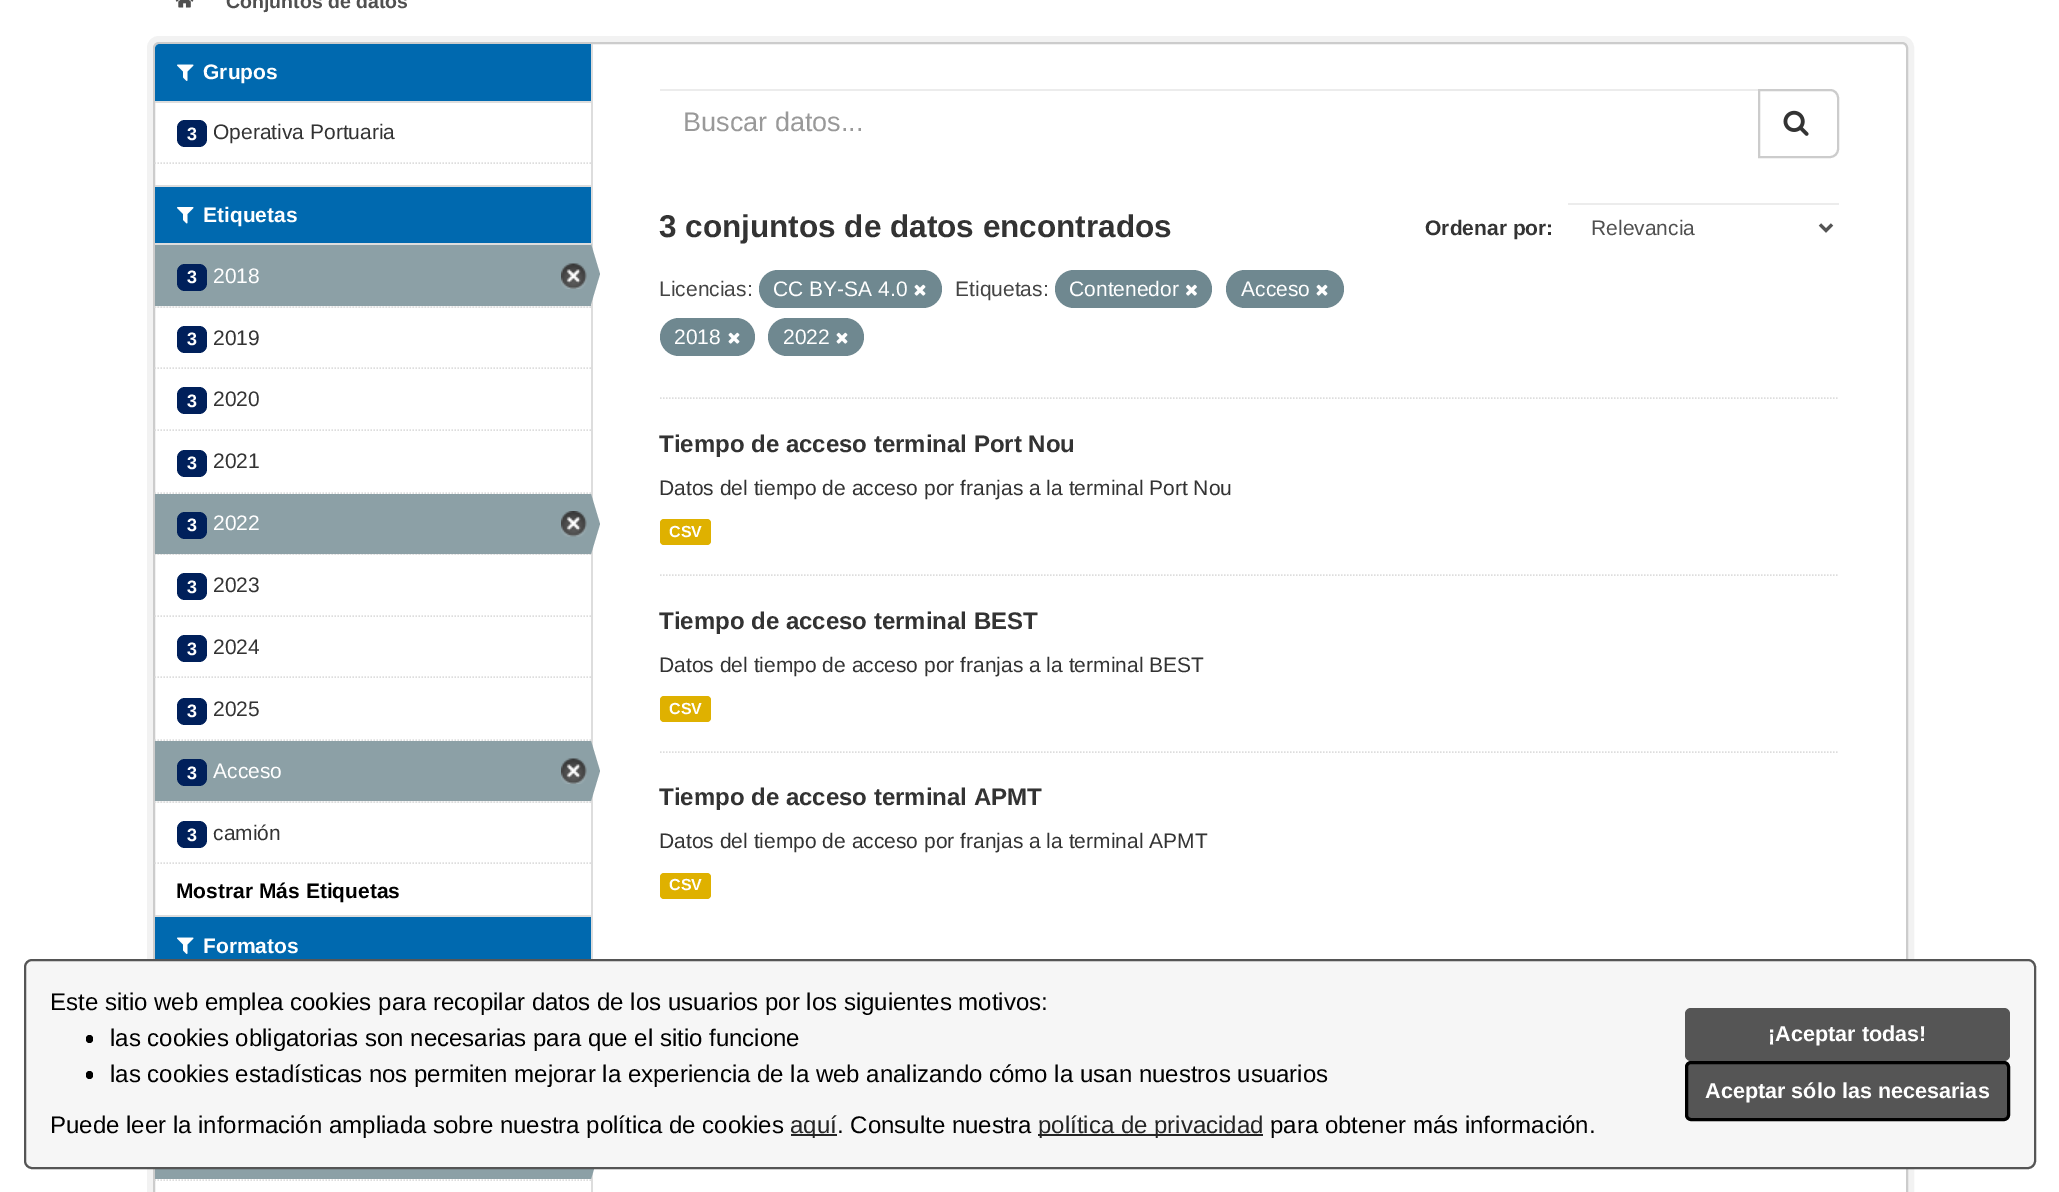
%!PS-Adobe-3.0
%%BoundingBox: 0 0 2059 1192
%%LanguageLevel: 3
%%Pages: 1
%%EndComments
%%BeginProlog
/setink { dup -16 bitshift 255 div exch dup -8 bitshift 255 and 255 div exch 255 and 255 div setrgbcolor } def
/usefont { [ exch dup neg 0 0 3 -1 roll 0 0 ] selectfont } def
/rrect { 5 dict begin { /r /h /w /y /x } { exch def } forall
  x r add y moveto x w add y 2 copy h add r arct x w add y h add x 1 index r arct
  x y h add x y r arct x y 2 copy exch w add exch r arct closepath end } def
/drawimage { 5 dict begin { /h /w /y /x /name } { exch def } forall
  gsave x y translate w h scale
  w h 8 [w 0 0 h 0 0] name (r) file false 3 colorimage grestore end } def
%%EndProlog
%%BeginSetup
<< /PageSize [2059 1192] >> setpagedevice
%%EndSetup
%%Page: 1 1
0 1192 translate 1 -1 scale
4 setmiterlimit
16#FFFFFF setink
0 0 2059 1192 rectfill
(img1.raw) 175 0 19 8 drawimage
/LiberationSans-Bold 19.5 usefont
16#505050 setink
226 8 moveto (Conjuntos de datos) show
16#F2F2F2 setink
6 setlinewidth
150 39 1761 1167 9 rrect stroke
16#FFFFFF setink
154 43 1753 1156 5 rrect gsave fill grestore
16#CCCCCC setink
2 setlinewidth
stroke
16#0069AF setink
160 44 moveto 591 44 lineto 591 102 lineto 155 102 lineto 155 49 lineto 155 46 157 44 160 44 curveto closepath fill
16#DDDDDD setink
155 101 436 2 rectfill
(img2.raw) 177 64 17 17 drawimage
/LiberationSans-Bold 21 usefont
16#FFFFFF setink
203 79 moveto (Grupos) show
16#00205B setink
177 120 30 27 8 rrect fill
/LiberationSans-Bold 18 usefont
16#FFFFFF setink
187 140 moveto (3) show
/LiberationSans-Regular 21 usefont
16#333333 setink
213 139 moveto (Operativa Portuaria) show
16#DDDDDD setink
1.5 setlinewidth
[1.5 1.5] 0 setdash
154.5 163 moveto 591 163 lineto stroke
[
    [155 187 436 56 16#0069AF]
    [155 185 436 2 16#DDDDDD]
    [155 243 436 2 16#DDDDDD]
] { aload pop setink rectfill } forall
(img3.raw) 177 207 17 17 drawimage
/LiberationSans-Bold 21 usefont
16#FFFFFF setink
203 222 moveto (Etiquetas) show
16#F6F6F6 setink
155 306 436 2 rectfill
16#DDDDDD setink
154.5 307 moveto 591 307 lineto stroke
16#8CA0A6 setink
155 245 436 61 rectfill
16#00205B setink
177 264 30 27 8 rrect fill
/LiberationSans-Bold 18 usefont
16#FFFFFF setink
187 283 moveto (3) show
/LiberationSans-Regular 21 usefont
213 283 moveto (2018) show
(img4.raw) 561 263 26 26 drawimage
16#DDDDDD setink
591 44 2 1148 rectfill
16#8CA0A6 setink
591 304 moveto 591 244 lineto 600 274 lineto closepath fill
16#DDDDDD setink
154.5 368 moveto 591 368 lineto stroke
16#00205B setink
177 326 30 27 8 rrect fill
/LiberationSans-Bold 18 usefont
16#FFFFFF setink
187 345 moveto (3) show
/LiberationSans-Regular 21 usefont
16#333333 setink
213 345 moveto (2019) show
16#DDDDDD setink
154.5 430 moveto 591 430 lineto stroke
16#00205B setink
177 387 30 27 8 rrect fill
/LiberationSans-Bold 18 usefont
16#FFFFFF setink
187 407 moveto (3) show
/LiberationSans-Regular 21 usefont
16#333333 setink
213 406 moveto (2020) show
16#DDDDDD setink
154.5 493 moveto 591 493 lineto stroke
16#00205B setink
177 450 30 27 8 rrect fill
/LiberationSans-Bold 18 usefont
16#FFFFFF setink
187 469 moveto (3) show
/LiberationSans-Regular 21 usefont
16#333333 setink
213 468 moveto (2021) show
16#F6F6F6 setink
155 554 436 1 rectfill
16#DDDDDD setink
154.5 554 moveto 591 554 lineto stroke
16#8CA0A6 setink
155 494 436 60 rectfill
16#00205B setink
177 512 30 27 8 rrect fill
/LiberationSans-Bold 18 usefont
16#FFFFFF setink
187 531 moveto (3) show
/LiberationSans-Regular 21 usefont
213 530 moveto (2022) show
(img5.raw) 561 511 26 26 drawimage
16#8CA0A6 setink
591 554 moveto 591 494 lineto 600 524 lineto closepath fill
16#DDDDDD setink
154.5 616 moveto 591 616 lineto stroke
16#00205B setink
177 573 30 27 8 rrect fill
/LiberationSans-Bold 18 usefont
16#FFFFFF setink
187 593 moveto (3) show
/LiberationSans-Regular 21 usefont
16#333333 setink
213 592 moveto (2023) show
16#DDDDDD setink
154.5 677 moveto 591 677 lineto stroke
16#00205B setink
177 635 30 27 8 rrect fill
/LiberationSans-Bold 18 usefont
16#FFFFFF setink
187 655 moveto (3) show
/LiberationSans-Regular 21 usefont
16#333333 setink
213 654 moveto (2024) show
16#DDDDDD setink
154.5 740 moveto 591 740 lineto stroke
16#00205B setink
177 698 30 27 8 rrect fill
/LiberationSans-Bold 18 usefont
16#FFFFFF setink
187 717 moveto (3) show
/LiberationSans-Regular 21 usefont
16#333333 setink
213 716 moveto (2025) show
16#F6F6F6 setink
155 801 436 2 rectfill
16#DDDDDD setink
154.5 802 moveto 591 802 lineto stroke
16#8CA0A6 setink
155 741 436 60 rectfill
16#00205B setink
177 759 30 27 8 rrect fill
/LiberationSans-Bold 18 usefont
16#FFFFFF setink
187 779 moveto (3) show
/LiberationSans-Regular 21 usefont
213 778 moveto (Acceso) show
(img4.raw) 561 758 26 26 drawimage
16#8CA0A6 setink
591 801 moveto 591 741 lineto 600 771 lineto closepath fill
16#00205B setink
177 821 30 27 8 rrect fill
/LiberationSans-Bold 18 usefont
16#FFFFFF setink
187 841 moveto (3) show
/LiberationSans-Regular 21 usefont
16#333333 setink
213 840 moveto (camión) show
16#DDDDDD setink
154.5 863 moveto 591 863 lineto stroke
/LiberationSans-Bold 21 usefont
16#000000 setink
176 898 moveto (Mostrar Más Etiquetas) show
16#0069AF setink
155 917 436 42 rectfill
16#DDDDDD setink
155 915 436 2 rectfill
(img2.raw) 177 937 17 17 drawimage
16#FFFFFF setink
203 953 moveto (Formatos) show
16#8CA0A6 setink
155 1169 436 10 rectfill
591 1179 moveto 591 1119 lineto 600 1149 lineto closepath fill
16#DDDDDD setink
154.5 1180 moveto 591 1180 lineto stroke
660 398 moveto 1839 398 lineto stroke
16#ECECEC setink
660 89 1100 2 rectfill
/LiberationSans-Regular 27 usefont
16#999999 setink
683 131 moveto (Buscar datos...) show
16#FFFFFF setink
1759 90 moveto 1830 90 lineto 1834.5 90 1838 93.5 1838 98 curveto 1838 149 lineto 1838 153.5 1834.5 157 1830 157 curveto 1759 157 lineto closepath gsave fill grestore
16#CCCCCC setink
2 setlinewidth
[] 0 setdash
stroke
(img6.raw) 1783 110 26 26 drawimage
/LiberationSans-Bold 31.5 usefont
16#333333 setink
659 237 moveto (3 conjuntos de datos encontrados) show
/LiberationSans-Bold 21 usefont
1425 235 moveto (Ordenar por:) show
16#ECECEC setink
1568 203 271 2 rectfill
16#555555 setink
3 setlinewidth
1820 224.5 moveto 1826 230.5 lineto 1832 224.5 lineto stroke
/LiberationSans-Regular 21 usefont
16#505050 setink
1591 235 moveto (Relevancia) show
16#444444 setink
659 296 moveto (Licencias:) show
16#6F8890 setink
759 270 183 38 19 rrect fill
16#FFFFFF setink
773 296 moveto (CC BY-SA 4.0) show
(img7.raw) 914 284 12 12 drawimage
16#444444 setink
955 296 moveto (Etiquetas:) show
16#6F8890 setink
1055 270 157 38 19 rrect fill
16#FFFFFF setink
1069 296 moveto (Contenedor) show
(img8.raw) 1186 284 11 12 drawimage
16#6F8890 setink
1226 270 118 38 19 rrect fill
16#FFFFFF setink
1241 296 moveto (Acceso) show
(img7.raw) 1316 284 12 12 drawimage
16#6F8890 setink
660 318 95 38 19 rrect fill
16#FFFFFF setink
674 344 moveto (2018) show
(img7.raw) 728 332 12 12 drawimage
16#6F8890 setink
768 318 96 38 19 rrect fill
16#FFFFFF setink
783 344 moveto (2022) show
(img7.raw) 836 332 12 12 drawimage
16#DDDDDD setink
1.5 setlinewidth
[1.5 1.5] 0 setdash
660 575 moveto 1839 575 lineto stroke
/LiberationSans-Bold 24 usefont
16#333333 setink
659 452 moveto (Tiempo de acceso terminal Port Nou) show
/LiberationSans-Regular 21 usefont
659 495 moveto (Datos del tiempo de acceso por franjas a la terminal Port Nou) show
16#DFB100 setink
660 519 51 26 4 rrect fill
/LiberationSans-Bold 16 usefont
16#FFFFFF setink
669 537 moveto (CSV) show
16#DDDDDD setink
660 752 moveto 1839 752 lineto stroke
/LiberationSans-Bold 24 usefont
16#333333 setink
659 629 moveto (Tiempo de acceso terminal BEST) show
/LiberationSans-Regular 21 usefont
659 672 moveto (Datos del tiempo de acceso por franjas a la terminal BEST) show
16#DFB100 setink
660 696 51 26 4 rrect fill
/LiberationSans-Bold 16 usefont
16#FFFFFF setink
669 714 moveto (CSV) show
/LiberationSans-Bold 24 usefont
16#333333 setink
659 805 moveto (Tiempo de acceso terminal APMT) show
/LiberationSans-Regular 21 usefont
659 848 moveto (Datos del tiempo de acceso por franjas a la terminal APMT) show
16#DFB100 setink
660 873 51 26 4 rrect fill
/LiberationSans-Bold 16 usefont
16#FFFFFF setink
669 890 moveto (CSV) show
16#F6F6F6 setink
25 960 2010 208 7 rrect gsave fill grestore
16#555555 setink
2 setlinewidth
[] 0 setdash
stroke
/LiberationSans-Regular 24 usefont
16#000000 setink
50 1010 moveto (Este sitio web emplea cookies para recopilar datos de los usuarios por los siguientes motivos:) show
86 1035 7 8 3.5 rrect fill
110 1046 moveto (las cookies obligatorias son necesarias para que el sitio funcione) show
86 1071 7 8 3.5 rrect fill
110 1082 moveto (las cookies estadísticas nos permiten mejorar la experiencia de la web analizando cómo la usan nuestros usuarios) show
50 1133 moveto (Puede leer la información ampliada sobre nuestra política de cookies) show
16#252525 setink
791 1134 46 2 rectfill
790 1133 moveto (aquí) show
16#000000 setink
837 1133 moveto (. Consulte nuestra) show
16#252525 setink
1038 1134 225 2 rectfill
1038 1133 moveto (política de privacidad) show
16#000000 setink
1270 1133 moveto (para obtener más información.) show
16#555555 setink
1685 1008 325 53 6 rrect fill
/LiberationSans-Bold 21.6 usefont
16#FFFFFF setink
1768 1041 moveto (¡Aceptar todas!) show
16#555555 setink
1686.5 1062.5 322 57 4.5 rrect gsave fill grestore
16#000000 setink
3 setlinewidth
stroke
16#FFFFFF setink
1705 1098 moveto (Aceptar sólo las necesarias) show
showpage
%%EOF
